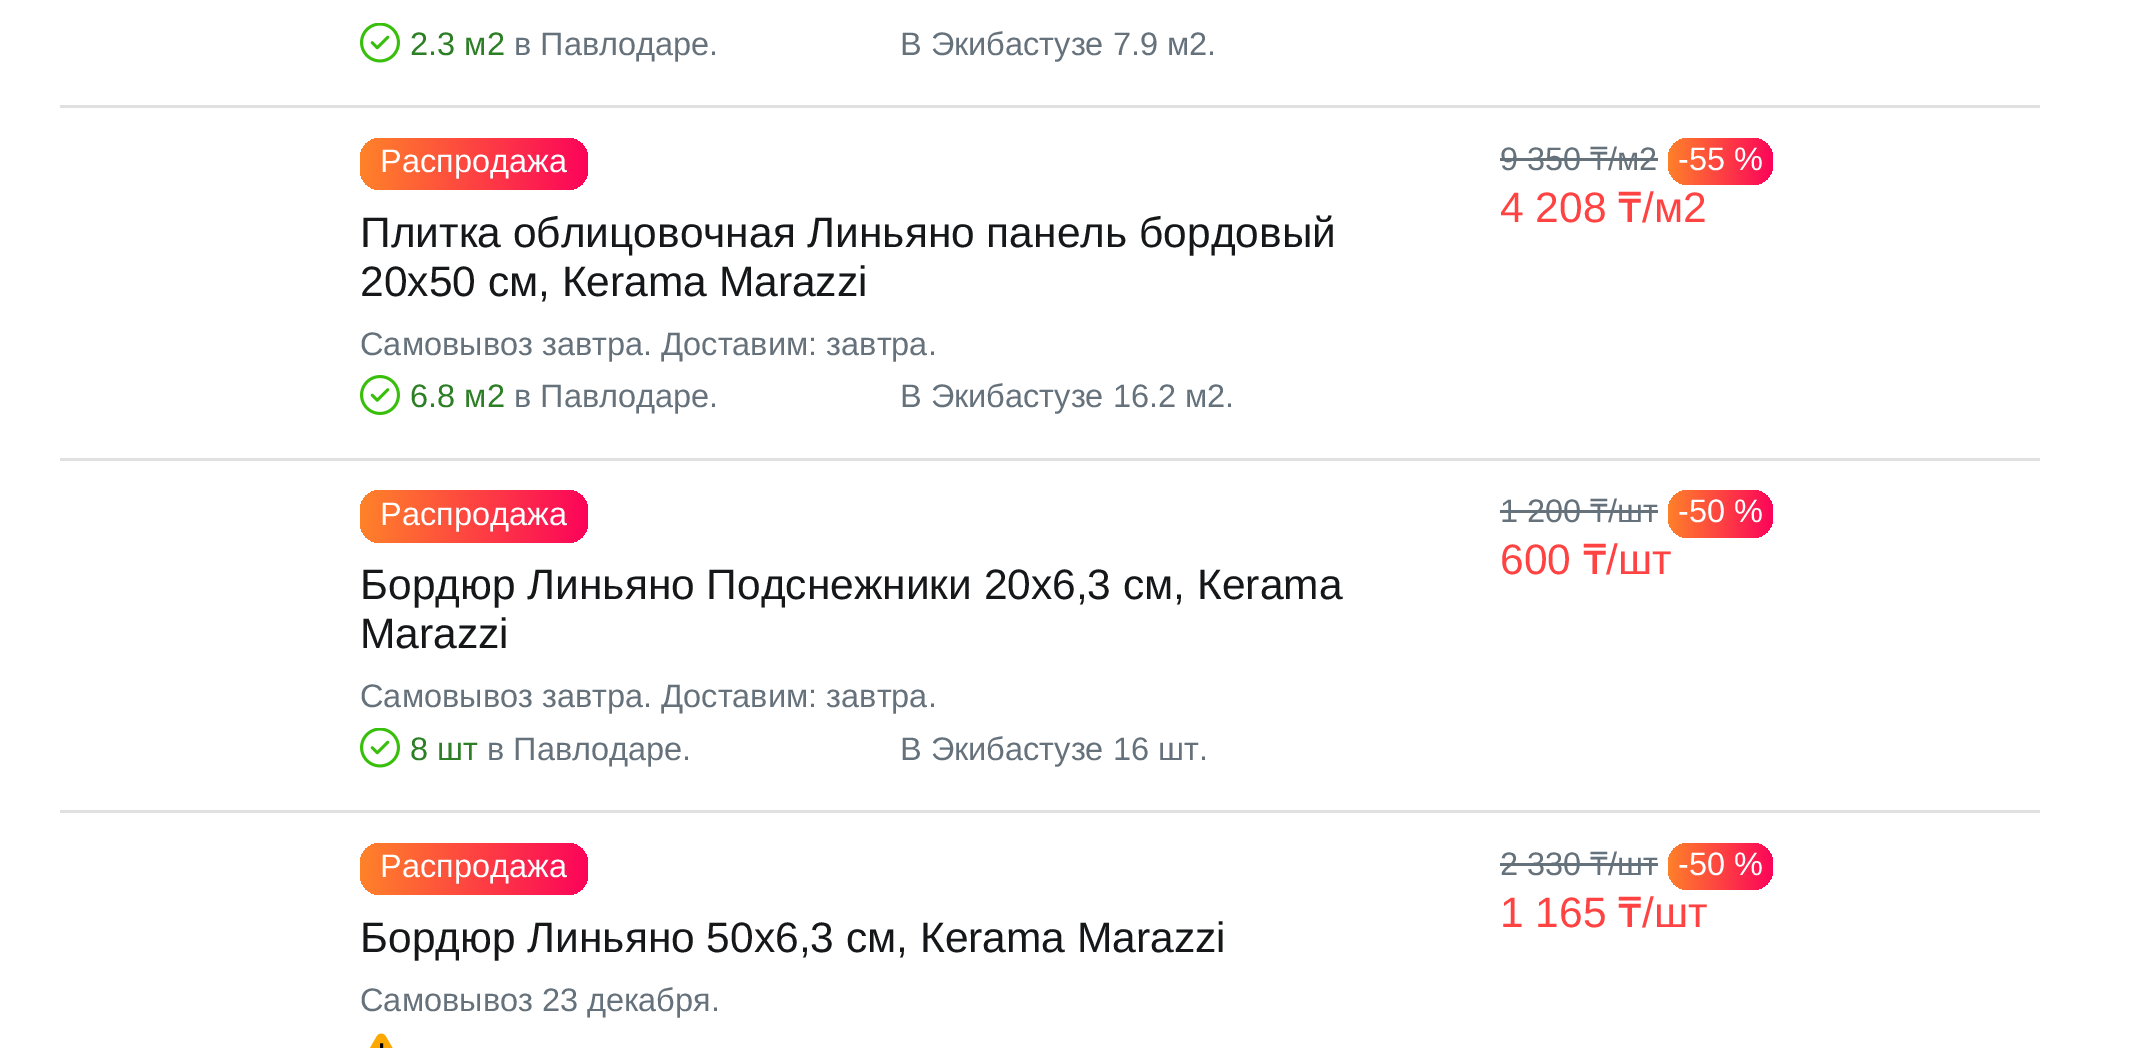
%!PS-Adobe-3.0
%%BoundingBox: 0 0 2136 1048
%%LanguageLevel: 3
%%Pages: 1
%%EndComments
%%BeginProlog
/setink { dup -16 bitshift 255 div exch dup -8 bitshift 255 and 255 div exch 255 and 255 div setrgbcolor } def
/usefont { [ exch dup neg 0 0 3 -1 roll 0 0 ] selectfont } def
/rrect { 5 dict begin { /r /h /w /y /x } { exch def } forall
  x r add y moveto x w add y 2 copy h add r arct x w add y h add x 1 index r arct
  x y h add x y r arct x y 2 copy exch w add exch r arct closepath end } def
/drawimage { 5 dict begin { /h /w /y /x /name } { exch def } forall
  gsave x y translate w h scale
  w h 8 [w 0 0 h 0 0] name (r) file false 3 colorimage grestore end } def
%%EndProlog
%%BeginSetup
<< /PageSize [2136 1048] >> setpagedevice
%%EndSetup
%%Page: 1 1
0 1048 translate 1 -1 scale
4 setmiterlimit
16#FFFFFF setink
0 0 2136 1048 rectfill
16#E0E0E0 setink
60 105 1980 3 rectfill
(img1.raw) 360 23 40 40 drawimage
/LiberationSans-Regular 32.5 usefont
16#2D7F26 setink
410 55 moveto (2.3 м2) show
16#66727B setink
514 55 moveto (в Павлодаре.) show
900 55 moveto (В Экибастузе 7.9 м2.) show
16#E0E0E0 setink
60 458 1980 3 rectfill
gsave 360 138 228 52 20 rrect clip newpath
<< /ShadingType 2 /ColorSpace /DeviceRGB /Coords [359 157 589 170] /Extend [true true] /Function << /FunctionType 2 /Domain [0 1] /C0 [1 0.514 0.161] /C1 [0.988 0.012 0.353] /N 1 >> >> shfill grestore
16#FFFFFF setink
380 172 moveto (Распродажа) show
/LiberationSans-Regular 42.5 usefont
16#151719 setink
360 247 moveto (Плитка облицовочная Линьяно панель бордовый) show
360 296 moveto (20x50 см, Кerama Мarazzi) show
/LiberationSans-Regular 32.5 usefont
16#66727B setink
360 355 moveto (Самовывоз завтра. Доставим: завтра.) show
(img2.raw) 360 375 40 40 drawimage
16#2D7F26 setink
410 407 moveto (6.8 м2) show
16#66727B setink
[
    [(в Павлодаре.) 514 407]
    [(В Экибастузе 16.2 м2.) 900 407]
    [(9 350) 1500 170]
] { aload pop moveto show } forall
1500 158 158 3 rectfill
/NotoSans-Regular 32.5 usefont
1590 170 moveto (₸) show
/LiberationSans-Regular 32.5 usefont
1608 170 moveto (/м2) show
gsave 1668 138 105 47 20 rrect clip newpath
<< /ShadingType 2 /ColorSpace /DeviceRGB /Coords [1666 158 1774 164] /Extend [true true] /Function << /FunctionType 2 /Domain [0 1] /C0 [1 0.514 0.161] /C1 [0.988 0.012 0.353] /N 1 >> >> shfill grestore
16#FFFFFF setink
1678 170 moveto (-55 %) show
/LiberationSans-Regular 42.5 usefont
16#FE4342 setink
1500 222 moveto (4 208) show
/NotoSans-Medium 42.5 usefont
1618 222 moveto (₸) show
/LiberationSans-Regular 42.5 usefont
1642 222 moveto (/м2) show
16#E0E0E0 setink
60 810 1980 3 rectfill
gsave 360 490 228 53 20 rrect clip newpath
<< /ShadingType 2 /ColorSpace /DeviceRGB /Coords [359 510 589 523] /Extend [true true] /Function << /FunctionType 2 /Domain [0 1] /C0 [1 0.514 0.161] /C1 [0.988 0.012 0.353] /N 1 >> >> shfill grestore
/LiberationSans-Regular 32.5 usefont
16#FFFFFF setink
380 525 moveto (Распродажа) show
/LiberationSans-Regular 42.5 usefont
16#151719 setink
360 599 moveto (Бордюр Линьяно Подснежники 20x6,3 см, Кerama) show
360 648 moveto (Мarazzi) show
/LiberationSans-Regular 32.5 usefont
16#66727B setink
360 707 moveto (Самовывоз завтра. Доставим: завтра.) show
(img1.raw) 360 728 40 40 drawimage
16#2D7F26 setink
410 760 moveto (8 шт) show
16#66727B setink
[
    [(в Павлодаре.) 487 760]
    [(В Экибастузе 16 шт.) 900 760]
    [(1 200) 1500 522]
] { aload pop moveto show } forall
1500 510 158 3 rectfill
/NotoSans-Regular 32.5 usefont
1590 522 moveto (₸) show
/LiberationSans-Regular 32.5 usefont
1608 522 moveto (/шт) show
gsave 1668 490 105 48 20 rrect clip newpath
<< /ShadingType 2 /ColorSpace /DeviceRGB /Coords [1666 511 1774 517] /Extend [true true] /Function << /FunctionType 2 /Domain [0 1] /C0 [1 0.514 0.161] /C1 [0.988 0.012 0.353] /N 1 >> >> shfill grestore
16#FFFFFF setink
1678 522 moveto (-50 %) show
/LiberationSans-Regular 42.5 usefont
16#FE4342 setink
1500 574 moveto (600) show
/NotoSans-Medium 42.5 usefont
1583 574 moveto (₸) show
/LiberationSans-Regular 42.5 usefont
1606 574 moveto (/шт) show
gsave 360 843 228 52 20 rrect clip newpath
<< /ShadingType 2 /ColorSpace /DeviceRGB /Coords [359 862 589 875] /Extend [true true] /Function << /FunctionType 2 /Domain [0 1] /C0 [1 0.514 0.161] /C1 [0.988 0.012 0.353] /N 1 >> >> shfill grestore
/LiberationSans-Regular 32.5 usefont
16#FFFFFF setink
380 877 moveto (Распродажа) show
/LiberationSans-Regular 42.5 usefont
16#151719 setink
360 952 moveto (Бордюр Линьяно 50x6,3 см, Кerama Мarazzi) show
/LiberationSans-Regular 32.5 usefont
16#66727B setink
360 1011 moveto (Самовывоз 23 декабря.) show
(img3.raw) 369 1033 24 15 drawimage
1500 875 moveto (2 330) show
1500 863 158 3 rectfill
/NotoSans-Regular 32.5 usefont
1590 875 moveto (₸) show
/LiberationSans-Regular 32.5 usefont
1608 875 moveto (/шт) show
gsave 1668 843 105 47 20 rrect clip newpath
<< /ShadingType 2 /ColorSpace /DeviceRGB /Coords [1666 863 1774 869] /Extend [true true] /Function << /FunctionType 2 /Domain [0 1] /C0 [1 0.514 0.161] /C1 [0.988 0.012 0.353] /N 1 >> >> shfill grestore
16#FFFFFF setink
1678 875 moveto (-50 %) show
/LiberationSans-Regular 42.5 usefont
16#FE4342 setink
1500 927 moveto (1 165) show
/NotoSans-Medium 42.5 usefont
1618 927 moveto (₸) show
/LiberationSans-Regular 42.5 usefont
1642 927 moveto (/шт) show
showpage
%%EOF
